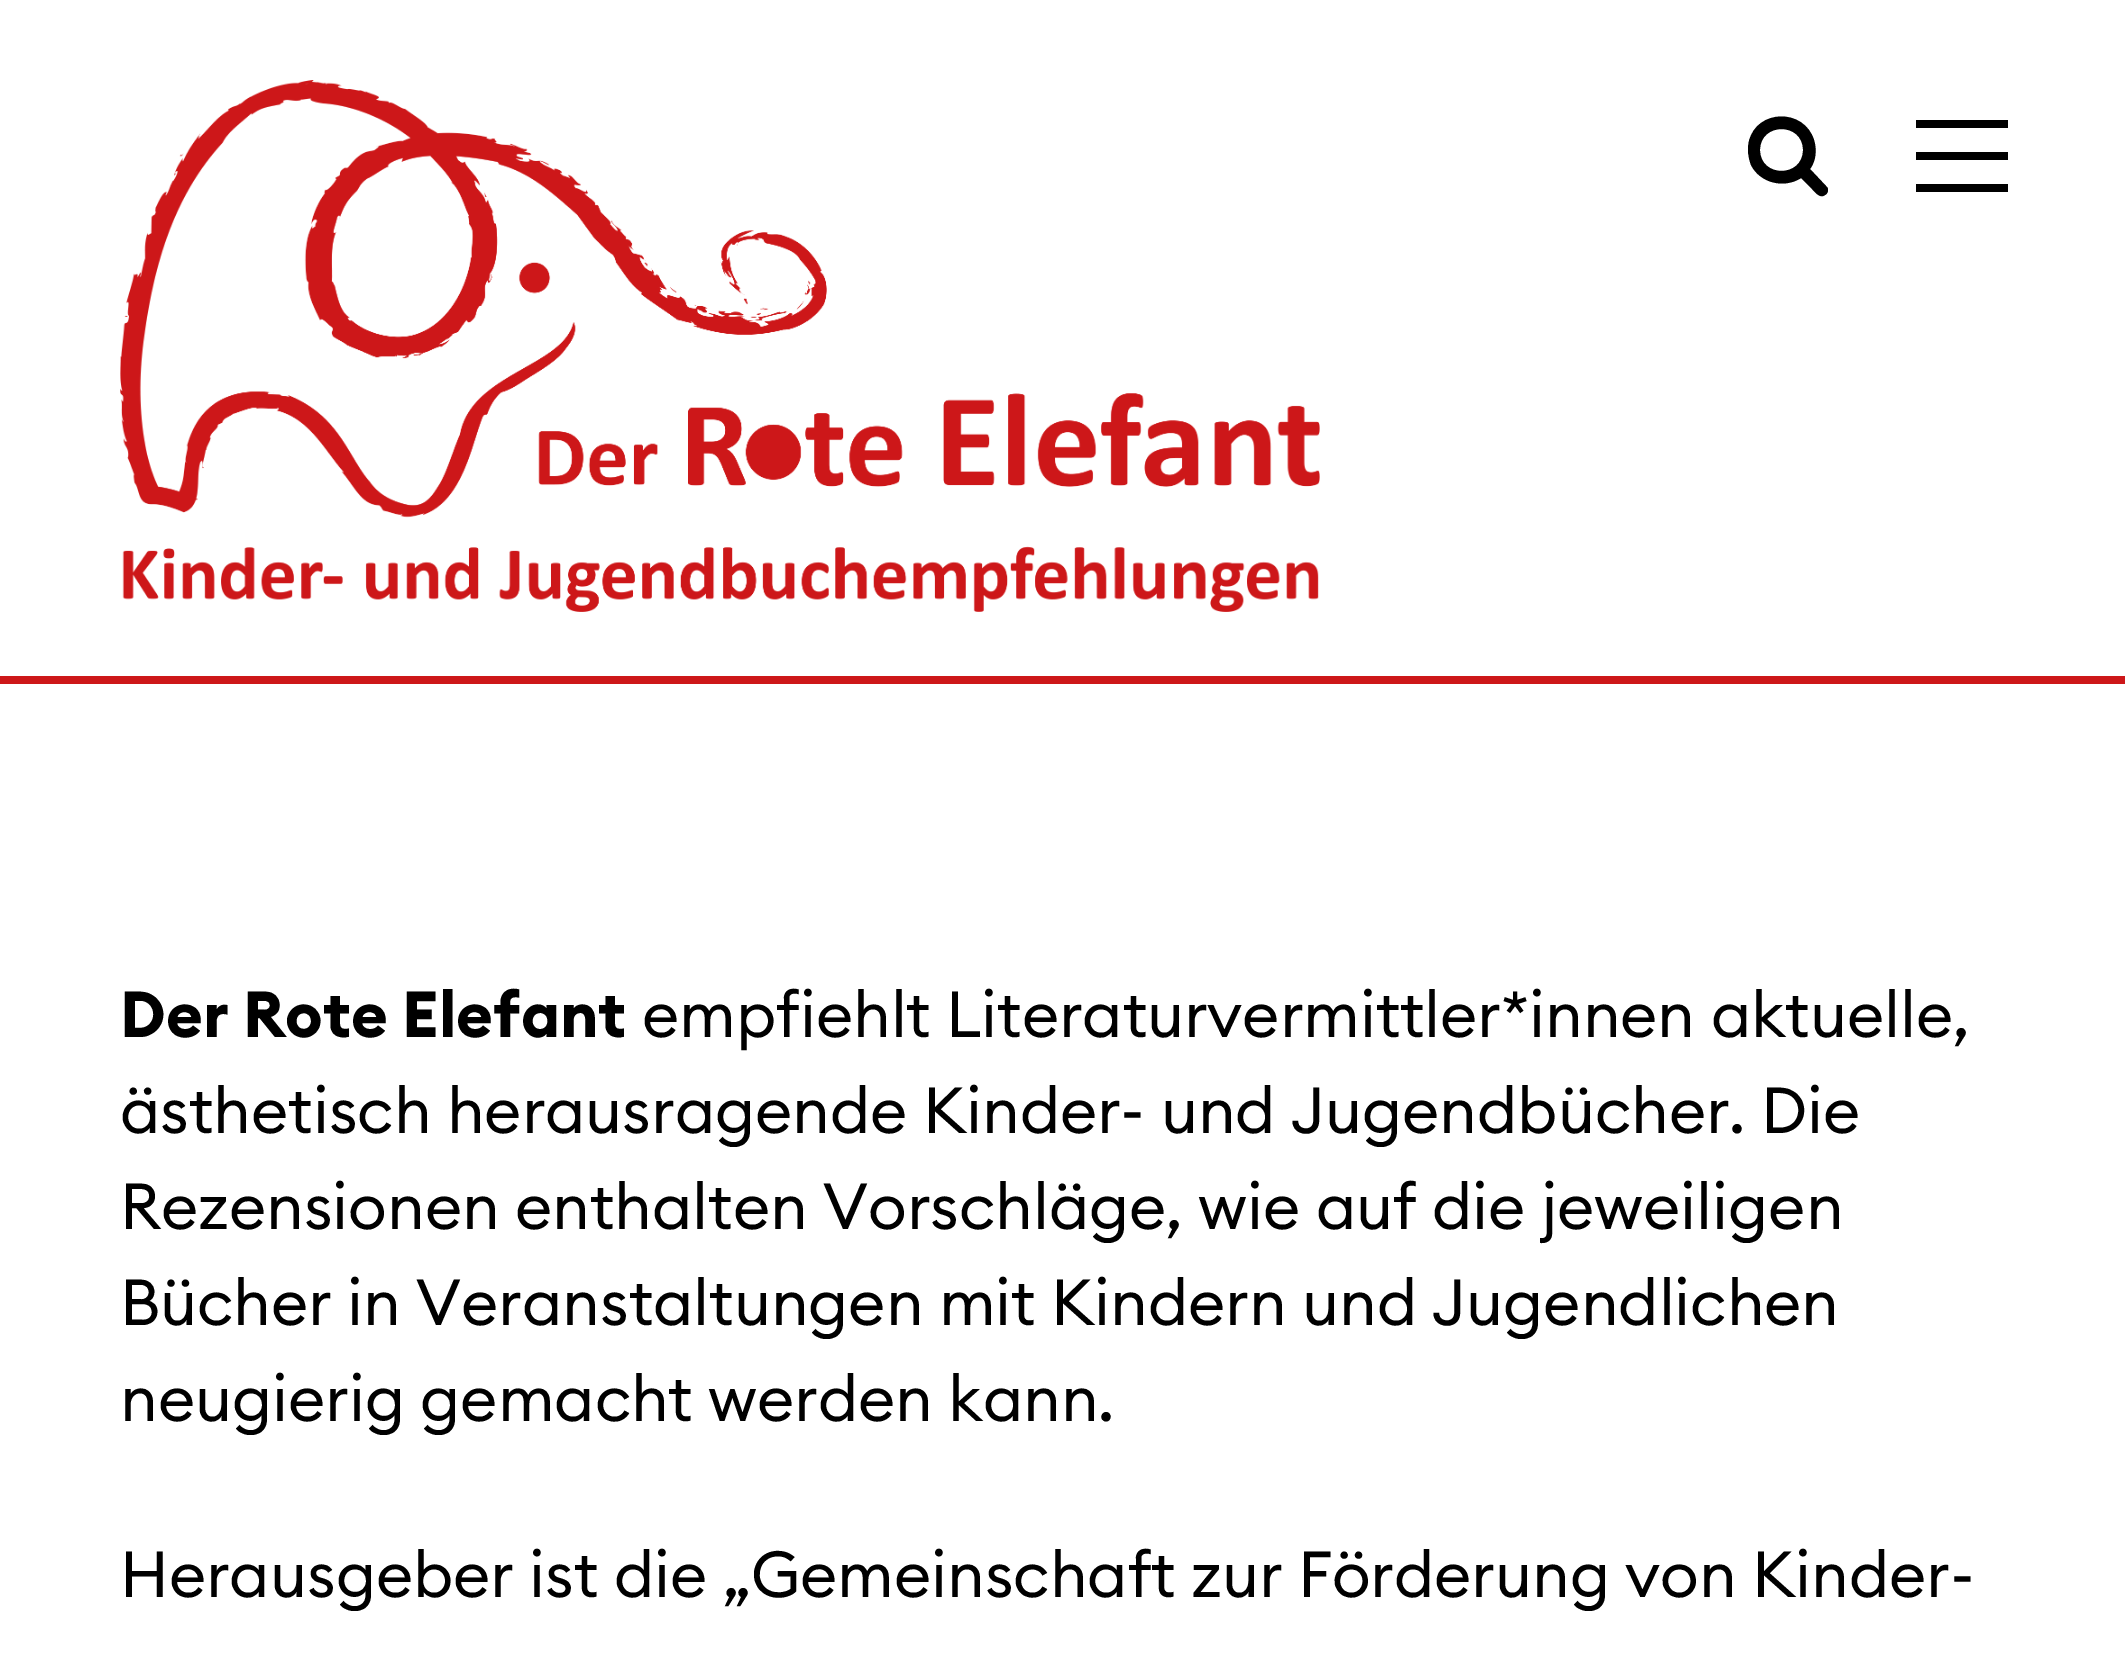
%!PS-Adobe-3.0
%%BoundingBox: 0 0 2125 1661
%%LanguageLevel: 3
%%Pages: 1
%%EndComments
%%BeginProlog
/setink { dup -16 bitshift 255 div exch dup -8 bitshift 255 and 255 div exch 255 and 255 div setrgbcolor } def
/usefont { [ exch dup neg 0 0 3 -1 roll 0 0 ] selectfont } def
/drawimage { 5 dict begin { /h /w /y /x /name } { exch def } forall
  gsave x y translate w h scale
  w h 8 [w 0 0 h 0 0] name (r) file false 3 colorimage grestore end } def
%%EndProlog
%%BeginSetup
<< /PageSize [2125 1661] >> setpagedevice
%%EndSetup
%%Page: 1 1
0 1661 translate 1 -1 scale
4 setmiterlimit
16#FFFFFF setink
0 0 2125 1661 rectfill
16#CD1719 setink
0 676 2125 8 rectfill
(img1.raw) 120 80 1200 532 drawimage
16#000000 setink
1803 150 moveto 1803 122 1760 122 1760 150 curveto 1760 178 1803 178 1803 150 curveto closepath 1828 190 moveto 1828 192 1827 194 1825 195 curveto 1820 199 1815 192 1812 189 curveto 1801 178 lineto 1784 189 1760 183 1751 165 curveto 1748 157 1747 149 1749 141 curveto 1757 109 1804 108 1814 140 curveto 1817 150 1816 161 1810 169 curveto 1826 186 lineto 1827 187 1828 188 1828 190 curveto closepath fill
[
    [1916 120 92 8 16#000000]
    [1916 152 92 8 16#000000]
    [1916 184 92 8 16#000000]
] { aload pop setink rectfill } forall
/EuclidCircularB-Bold 64 usefont
120 1037 moveto (Der Rote Elefant) show
/EuclidCircularB-Regular 64 usefont
[
    [(empfiehlt Literaturvermittler*innen aktuelle,) 642 1037]
    [(ästhetisch herausragende Kinder- und Jugendbücher. Die) 120 1133]
    [(Rezensionen enthalten Vorschläge, wie auf die jeweiligen) 120 1229]
    [(Bücher in Veranstaltungen mit Kindern und Jugendlichen) 120 1325]
    [(neugierig gemacht werden kann.) 120 1421]
    [(Herausgeber ist die „Gemeinschaft zur Förderung von Kinder-) 120 1597]
] { aload pop moveto show } forall
showpage
%%EOF
